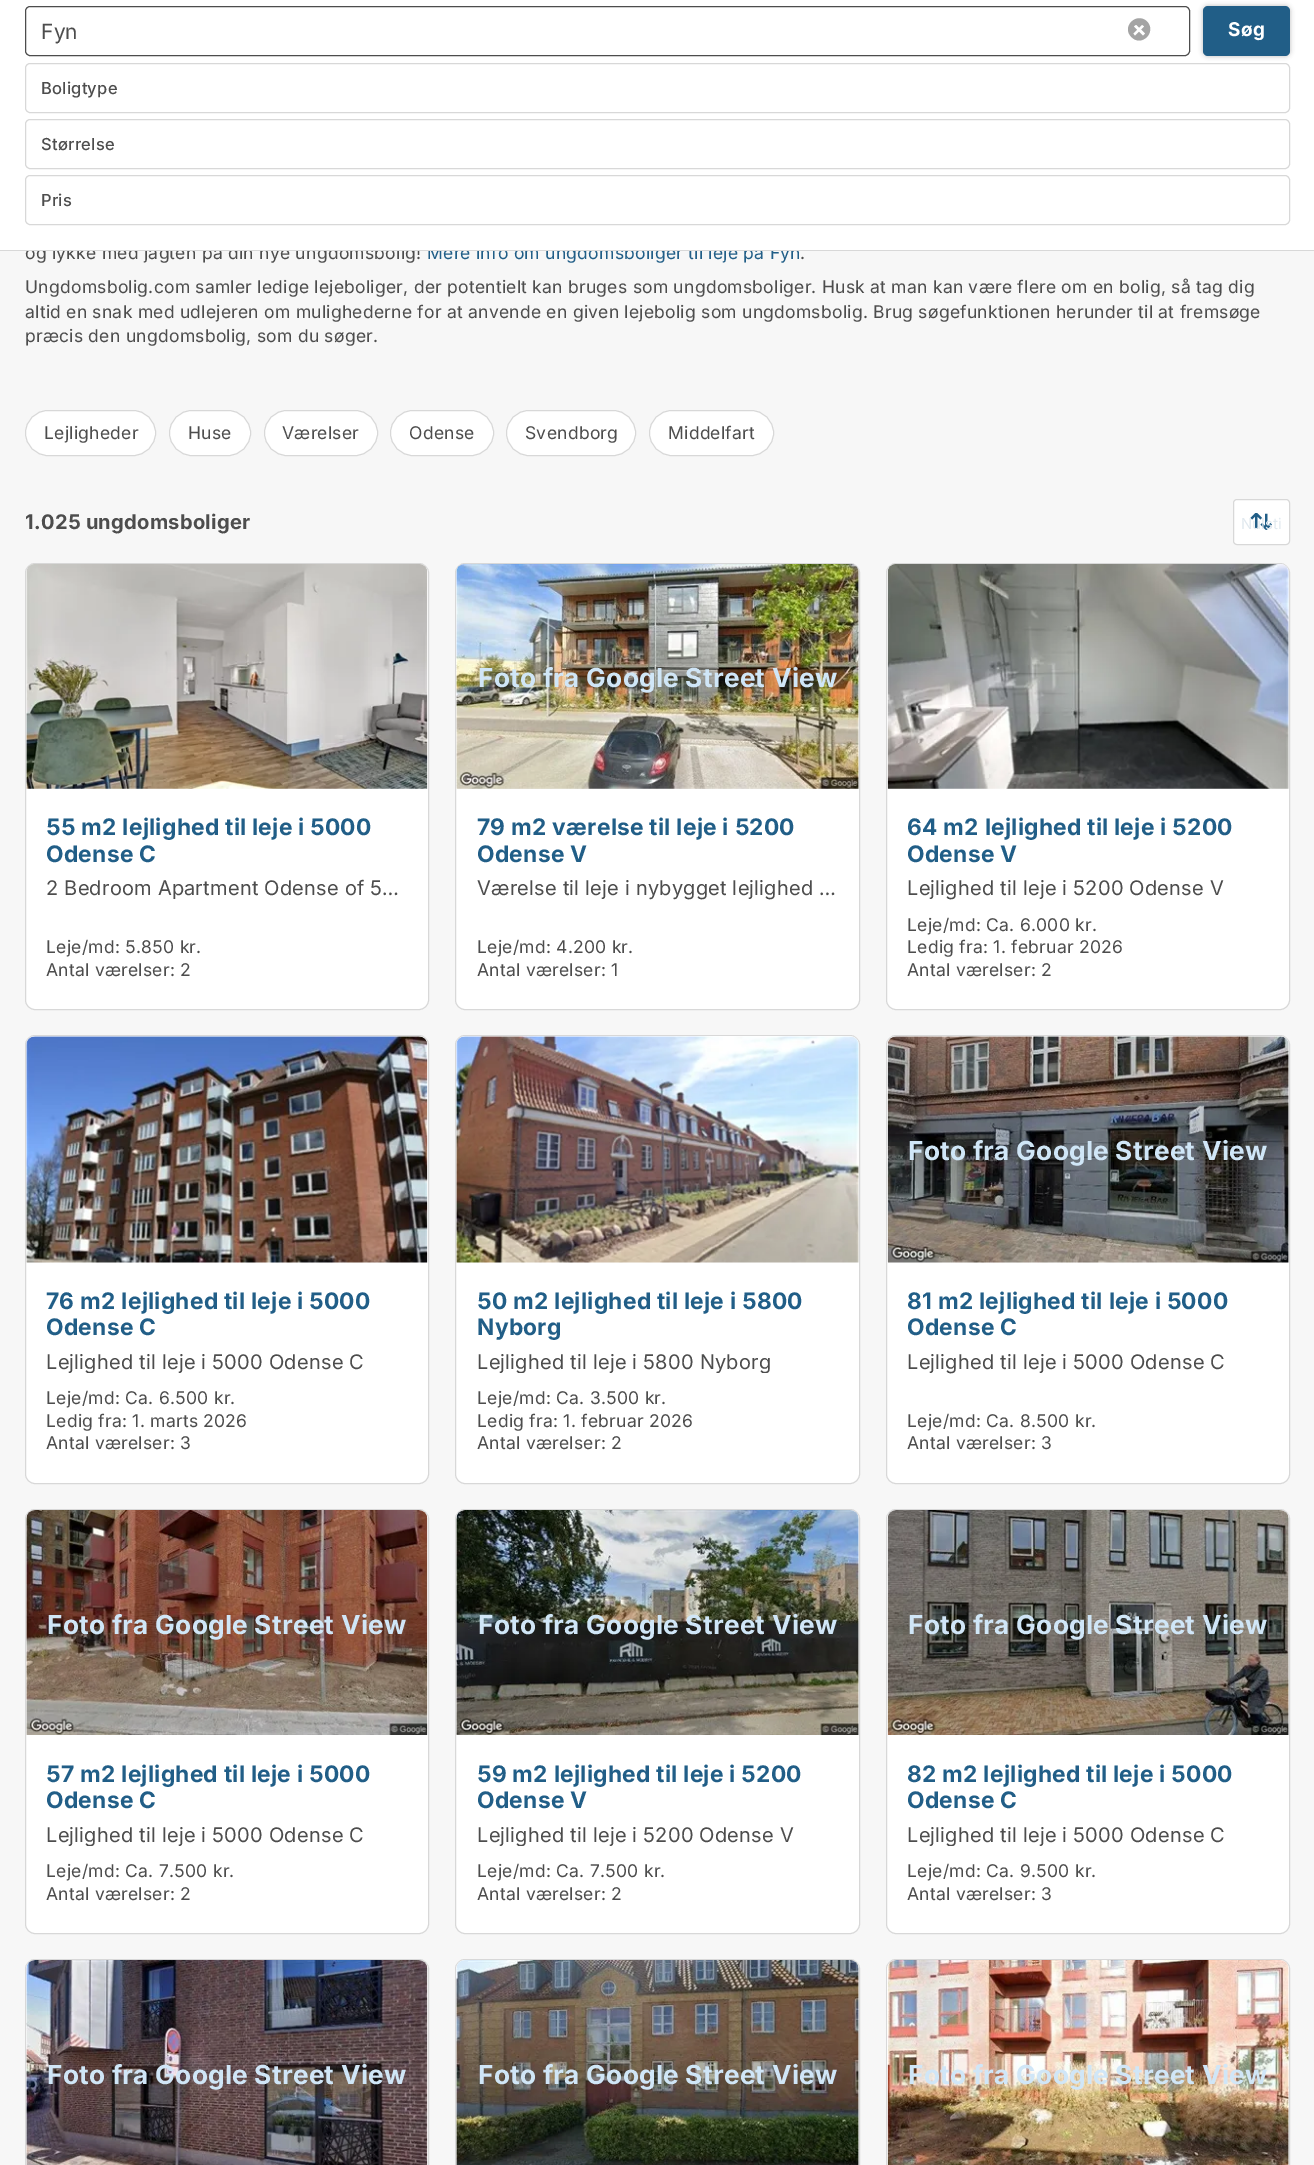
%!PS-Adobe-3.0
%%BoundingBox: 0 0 1314 2165
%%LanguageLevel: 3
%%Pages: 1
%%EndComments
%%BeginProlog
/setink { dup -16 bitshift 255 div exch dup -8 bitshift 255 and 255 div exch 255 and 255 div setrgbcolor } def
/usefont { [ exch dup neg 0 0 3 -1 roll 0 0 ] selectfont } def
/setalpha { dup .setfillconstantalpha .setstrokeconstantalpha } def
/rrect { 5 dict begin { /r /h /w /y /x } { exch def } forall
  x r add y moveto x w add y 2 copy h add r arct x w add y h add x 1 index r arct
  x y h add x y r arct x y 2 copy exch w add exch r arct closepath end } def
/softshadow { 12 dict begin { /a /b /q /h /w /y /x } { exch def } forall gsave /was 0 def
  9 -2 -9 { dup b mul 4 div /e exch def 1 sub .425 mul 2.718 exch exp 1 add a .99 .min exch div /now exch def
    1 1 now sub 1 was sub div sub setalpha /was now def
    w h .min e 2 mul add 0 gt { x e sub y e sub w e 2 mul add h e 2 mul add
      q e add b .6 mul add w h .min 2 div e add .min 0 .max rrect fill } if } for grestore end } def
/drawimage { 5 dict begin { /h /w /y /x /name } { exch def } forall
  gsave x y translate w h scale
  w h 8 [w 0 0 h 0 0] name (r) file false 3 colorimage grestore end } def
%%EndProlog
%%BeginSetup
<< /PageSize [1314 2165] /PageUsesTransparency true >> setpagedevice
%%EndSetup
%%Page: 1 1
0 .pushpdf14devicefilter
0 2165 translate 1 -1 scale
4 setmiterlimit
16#F7F7F7 setink
0 0 1314 2165 rectfill
/Inter-Regular 17.5 usefont
16#4D4D4D setink
25 259 moveto 0.25 0 (og lykke med jagten på din nye ungdomsbolig!) ashow
16#215E87 setink
427 259 moveto 0.25 0 (Mere info om ungdomsboliger til leje på Fyn) ashow
16#FFFFFF setink
0 0 1314 250 rectfill
16#D8D8D8 setink
0 250 1314 1 rectfill
16#4D4D4D setink
25.5 6.5 1164 49 4.5 rrect stroke
/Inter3-Regular 21 usefont
41 39 moveto 0.25 0 (Fyn) ashow
16#A4A4A4 setink
1147 21.5 moveto 1157 32 1141.5 47.5 1131.5 37 curveto 1121 27 1136.5 11.5 1147 21.5 curveto closepath fill
16#FFFFFF setink
1136 25 moveto 1145 33.5 lineto 1143 35.5 lineto 1134 26.5 lineto closepath fill
1142 25 moveto 1144 26.5 lineto 1135 35.5 lineto 1133.5 33.5 lineto closepath fill
16#000000 setink
1203 6 87 50 5 2.5 0.25 softshadow
16#215E87 setink
1203 6 87 50 5 rrect fill
/Inter-Bold 19 usefont
16#FFFFFF setink
1228 36 moveto 0.25 0 (Søg) ashow
16#D8D8D8 setink
25.5 63.5 1264 49 4.5 rrect stroke
/Inter-Medium 16.5 usefont
16#4D4D4D setink
41 94 moveto 0.25 0 (Boligtype) ashow
16#D8D8D8 setink
25.5 119.5 1264 49 4.5 rrect stroke
16#4D4D4D setink
41 150 moveto 0.25 0 (Størrelse) ashow
16#D8D8D8 setink
25.5 175.5 1264 49 4.5 rrect stroke
16#4D4D4D setink
41 206 moveto 0.25 0 (Pris) ashow
/Inter-Regular 17.5 usefont
800 259 moveto 0.25 0 (.) ashow
25 293 moveto 0.25 0 (Ungdomsbolig.com samler ledige lejeboliger, der potentielt kan bruges som ungdomsboliger. Husk at man kan være flere om en bolig, så tag dig) ashow
25 318 moveto 0.25 0 (altid en snak med udlejeren om mulighederne for at anvende en given lejebolig som ungdomsbolig. Brug søgefunktionen herunder til at fremsøge) ashow
25 342 moveto 0.25 0 (præcis den ungdomsbolig, som du søger.) ashow
16#FFFFFF setink
25.5 410.5 130 45 22.5 rrect gsave fill grestore
16#D8D8D8 setink
stroke
16#4D4D4D setink
44 439 moveto 0.25 0 (Lejligheder) ashow
16#FFFFFF setink
169.5 410.5 81 45 22.5 rrect gsave fill grestore
16#D8D8D8 setink
stroke
16#4D4D4D setink
188 439 moveto 0.25 0 (Huse) ashow
16#FFFFFF setink
264.5 410.5 113 45 22.5 rrect gsave fill grestore
16#D8D8D8 setink
stroke
16#4D4D4D setink
282 439 moveto 0.25 0 (Værelser) ashow
16#FFFFFF setink
390.5 410.5 103 45 22.5 rrect gsave fill grestore
16#D8D8D8 setink
stroke
16#4D4D4D setink
409 439 moveto 0.25 0 (Odense) ashow
16#FFFFFF setink
506.5 410.5 129 45 22.5 rrect gsave fill grestore
16#D8D8D8 setink
stroke
16#4D4D4D setink
525 439 moveto 0.25 0 (Svendborg) ashow
16#FFFFFF setink
649.5 410.5 124 45 22.5 rrect gsave fill grestore
16#D8D8D8 setink
stroke
16#4D4D4D setink
668 439 moveto 0.25 0 (Middelfart) ashow
/Inter-Bold 20.1 usefont
25 529 moveto 0.25 0 (1.025 ungdomsboliger) ashow
16#FFFFFF setink
1233.5 499.5 56 45 3.5 rrect gsave fill grestore
16#D8D8D8 setink
stroke
(img1.raw) 1250 513 22 17 drawimage
/Inter-Regular 15 usefont
16#E1E9EF setink
1241 529 moveto (Nulsti) show
16#FFFFFF setink
25.5 563.5 403 446 9.5 rrect gsave fill grestore
16#D8D8D8 setink
stroke
(img2.raw) 26 564 402 225 drawimage
/Inter-Bold 22.75 usefont
16#215E87 setink
46 835 moveto 0.25 0 (55 m2 lejlighed til leje i 5000) ashow
46 862 moveto 0.25 0 (Odense C) ashow
/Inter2-Regular 20.1 usefont
16#4D4D4D setink
46 895 moveto 0.25 0 (2 Bedroom Apartment Odense of 5…) ashow
/Inter-Regular 17.5 usefont
46 953 moveto 0.25 0 (Leje/md:) ashow
125 953 moveto 0.25 0 (5.850 kr.) ashow
46 976 moveto 0.25 0 (Antal værelser: 2) ashow
16#FFFFFF setink
455.5 563.5 404 446 9.5 rrect gsave fill grestore
16#D8D8D8 setink
stroke
(img3.raw) 456 564 403 225 drawimage
/Inter-Bold 26.25 usefont
16#D0E6F7 setink
478 687 moveto 0.25 0 (Foto fra Google Street View) ashow
/Inter-Bold 22.75 usefont
16#215E87 setink
477 835 moveto 0.25 0 (79 m2 værelse til leje i 5200) ashow
477 862 moveto 0.25 0 (Odense V) ashow
/Inter2-Regular 20.1 usefont
16#4D4D4D setink
477 895 moveto 0.25 0 (Værelse til leje i nybygget lejlighed …) ashow
/Inter-Regular 17.5 usefont
477 953 moveto 0.25 0 (Leje/md: 4.200 kr.) ashow
477 976 moveto 0.25 0 (Antal værelser: 1) ashow
16#FFFFFF setink
886.5 563.5 403 446 9.5 rrect gsave fill grestore
16#D8D8D8 setink
stroke
(img4.raw) 887 564 402 225 drawimage
/Inter-Bold 22.75 usefont
16#215E87 setink
907 835 moveto 0.25 0 (64 m2 lejlighed til leje i 5200) ashow
907 862 moveto 0.25 0 (Odense V) ashow
/Inter2-Regular 20.1 usefont
16#4D4D4D setink
907 895 moveto 0.25 0 (Lejlighed til leje i 5200 Odense V) ashow
/Inter-Regular 17.5 usefont
907 931 moveto 0.25 0 (Leje/md: Ca. 6.000 kr.) ashow
907 953 moveto 0.25 0 (Ledig fra: 1. februar 2026) ashow
907 976 moveto 0.25 0 (Antal værelser: 2) ashow
16#FFFFFF setink
25.5 1035.5 403 448 9.5 rrect gsave fill grestore
16#D8D8D8 setink
stroke
(img5.raw) 26 1036 402 227 drawimage
/Inter-Bold 22.75 usefont
16#215E87 setink
46 1309 moveto 0.25 0 (76 m2 lejlighed til leje i 5000) ashow
46 1335 moveto 0.25 0 (Odense C) ashow
gsave
46 1350 362 23 rectclip
/Inter2-Regular 20.1 usefont
16#4D4D4D setink
46 1369 moveto 0.25 0 (Lejlighed til leje i 5000 Odense C) ashow
grestore
/Inter-Regular 17.5 usefont
16#4D4D4D setink
46 1404 moveto 0.25 0 (Leje/md: Ca. 6.500 kr.) ashow
46 1427 moveto 0.25 0 (Ledig fra: 1. marts 2026) ashow
46 1449 moveto 0.25 0 (Antal værelser: 3) ashow
16#FFFFFF setink
455.5 1035.5 404 448 9.5 rrect gsave fill grestore
16#D8D8D8 setink
stroke
(img6.raw) 456 1036 403 227 drawimage
/Inter-Bold 22.75 usefont
16#215E87 setink
477 1309 moveto 0.25 0 (50 m2 lejlighed til leje i 5800) ashow
477 1335 moveto 0.25 0 (Nyborg) ashow
gsave
476 1350 363 23 rectclip
/Inter2-Regular 20.1 usefont
16#4D4D4D setink
477 1369 moveto 0.25 0 (Lejlighed til leje i 5800 Nyborg) ashow
grestore
/Inter-Regular 17.5 usefont
16#4D4D4D setink
477 1404 moveto 0.25 0 (Leje/md: Ca. 3.500 kr.) ashow
477 1427 moveto 0.25 0 (Ledig fra: 1. februar 2026) ashow
477 1449 moveto 0.25 0 (Antal værelser: 2) ashow
16#FFFFFF setink
886.5 1035.5 403 448 9.5 rrect gsave fill grestore
16#D8D8D8 setink
stroke
(img7.raw) 887 1036 402 227 drawimage
/Inter-Bold 26.25 usefont
16#D0E6F7 setink
908 1160 moveto 0.25 0 (Foto fra Google Street View) ashow
/Inter-Bold 22.75 usefont
16#215E87 setink
907 1309 moveto 0.25 0 (81 m2 lejlighed til leje i 5000) ashow
907 1335 moveto 0.25 0 (Odense C) ashow
/Inter2-Regular 20.1 usefont
16#4D4D4D setink
907 1369 moveto 0.25 0 (Lejlighed til leje i 5000 Odense C) ashow
/Inter-Regular 17.5 usefont
907 1427 moveto 0.25 0 (Leje/md: Ca. 8.500 kr.) ashow
907 1449 moveto 0.25 0 (Antal værelser: 3) ashow
16#FFFFFF setink
25.5 1509.5 403 424 9.5 rrect gsave fill grestore
16#D8D8D8 setink
stroke
(img8.raw) 26 1510 402 225 drawimage
/Inter-Bold 26.25 usefont
16#D0E6F7 setink
47 1634 moveto 0.25 0 (Foto fra Google Street View) ashow
/Inter-Bold 22.75 usefont
16#215E87 setink
46 1782 moveto 0.25 0 (57 m2 lejlighed til leje i 5000) ashow
46 1808 moveto 0.25 0 (Odense C) ashow
gsave
46 1823 362 23 rectclip
/Inter2-Regular 20.1 usefont
16#4D4D4D setink
46 1842 moveto 0.25 0 (Lejlighed til leje i 5000 Odense C) ashow
grestore
/Inter-Regular 17.5 usefont
16#4D4D4D setink
46 1877 moveto 0.25 0 (Leje/md: Ca. 7.500 kr.) ashow
46 1900 moveto 0.25 0 (Antal værelser: 2) ashow
16#FFFFFF setink
455.5 1509.5 404 424 9.5 rrect gsave fill grestore
16#D8D8D8 setink
stroke
(img9.raw) 456 1510 403 225 drawimage
/Inter-Bold 26.25 usefont
16#D0E6F7 setink
478 1634 moveto 0.25 0 (Foto fra Google Street View) ashow
/Inter-Bold 22.75 usefont
16#215E87 setink
477 1782 moveto 0.25 0 (59 m2 lejlighed til leje i 5200) ashow
477 1808 moveto 0.25 0 (Odense V) ashow
gsave
476 1823 363 23 rectclip
/Inter2-Regular 20.1 usefont
16#4D4D4D setink
477 1842 moveto 0.25 0 (Lejlighed til leje i 5200 Odense V) ashow
grestore
/Inter-Regular 17.5 usefont
16#4D4D4D setink
477 1877 moveto 0.25 0 (Leje/md: Ca. 7.500 kr.) ashow
477 1900 moveto 0.25 0 (Antal værelser: 2) ashow
16#FFFFFF setink
886.5 1509.5 403 424 9.5 rrect gsave fill grestore
16#D8D8D8 setink
stroke
(img10.raw) 887 1510 402 225 drawimage
/Inter-Bold 26.25 usefont
16#D0E6F7 setink
908 1634 moveto 0.25 0 (Foto fra Google Street View) ashow
/Inter-Bold 22.75 usefont
16#215E87 setink
907 1782 moveto 0.25 0 (82 m2 lejlighed til leje i 5000) ashow
907 1808 moveto 0.25 0 (Odense C) ashow
gsave
908 1823 361 23 rectclip
/Inter2-Regular 20.1 usefont
16#4D4D4D setink
907 1842 moveto 0.25 0 (Lejlighed til leje i 5000 Odense C) ashow
grestore
/Inter-Regular 17.5 usefont
16#4D4D4D setink
907 1877 moveto 0.25 0 (Leje/md: Ca. 9.500 kr.) ashow
907 1900 moveto 0.25 0 (Antal værelser: 3) ashow
16#FFFFFF setink
25.5 1959.5 403 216 9.5 rrect gsave fill grestore
16#D8D8D8 setink
stroke
(img11.raw) 26 1960 402 205 drawimage
/Inter-Bold 26.25 usefont
16#D0E6F7 setink
47 2084 moveto 0.25 0 (Foto fra Google Street View) ashow
16#FFFFFF setink
455.5 1959.5 404 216 9.5 rrect gsave fill grestore
16#D8D8D8 setink
stroke
(img12.raw) 456 1960 403 205 drawimage
16#D0E6F7 setink
478 2084 moveto 0.25 0 (Foto fra Google Street View) ashow
16#FFFFFF setink
886.5 1959.5 403 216 9.5 rrect gsave fill grestore
16#D8D8D8 setink
stroke
(img13.raw) 887 1960 402 205 drawimage
16#D0E6F7 setink
908 2084 moveto 0.25 0 (Foto fra Google Street View) ashow
.poppdf14devicefilter showpage
%%EOF
